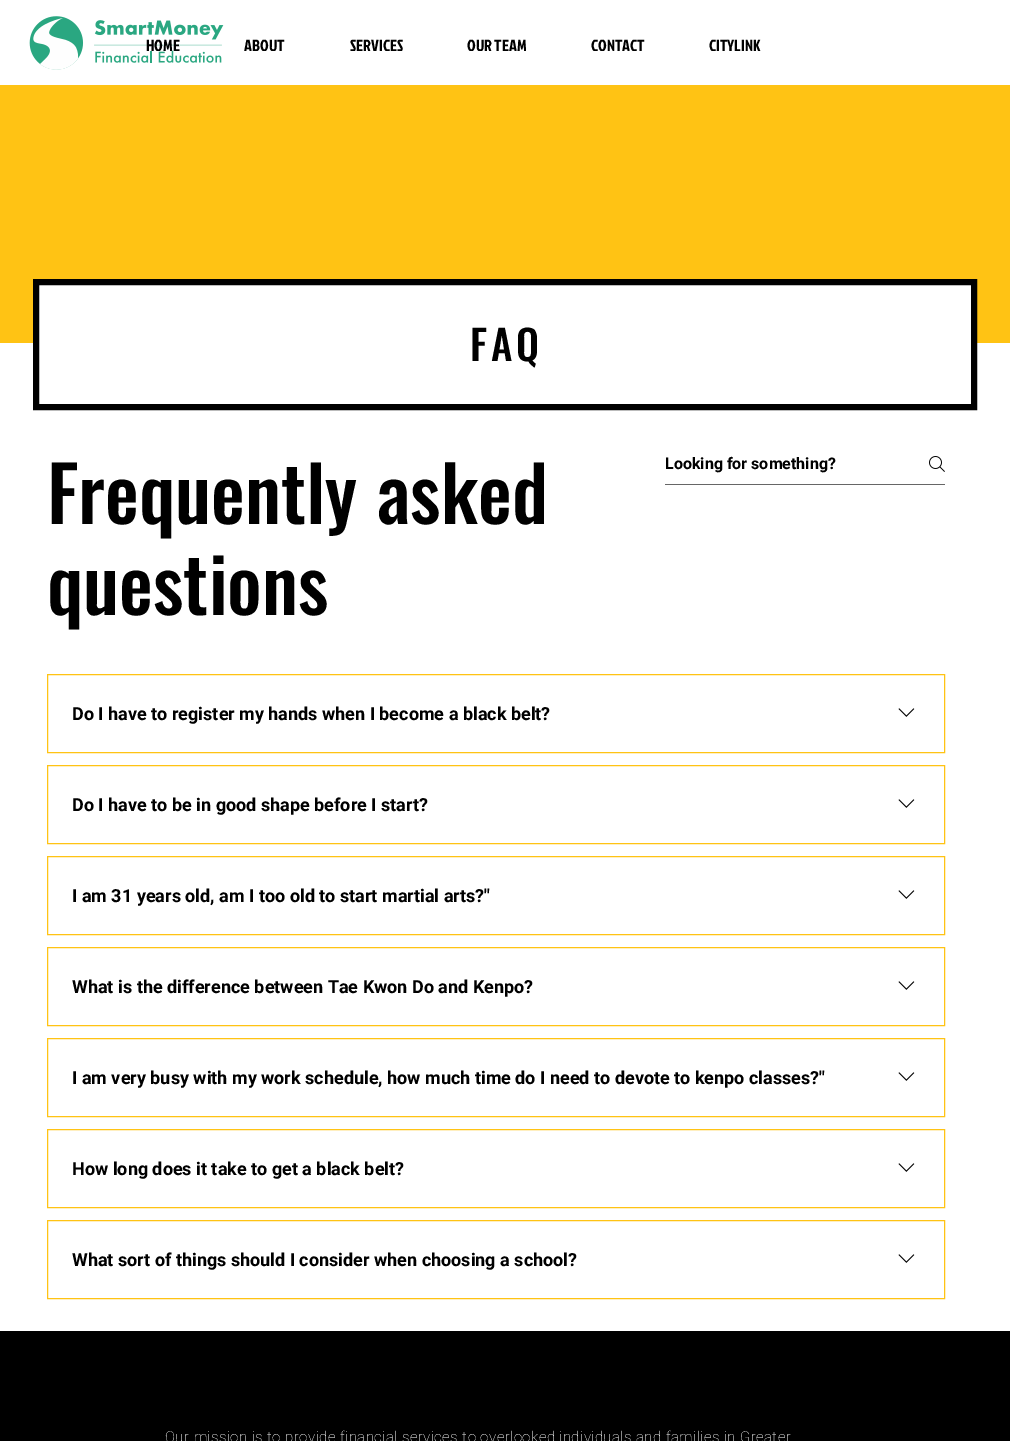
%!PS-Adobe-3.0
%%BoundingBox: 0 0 1010 1441
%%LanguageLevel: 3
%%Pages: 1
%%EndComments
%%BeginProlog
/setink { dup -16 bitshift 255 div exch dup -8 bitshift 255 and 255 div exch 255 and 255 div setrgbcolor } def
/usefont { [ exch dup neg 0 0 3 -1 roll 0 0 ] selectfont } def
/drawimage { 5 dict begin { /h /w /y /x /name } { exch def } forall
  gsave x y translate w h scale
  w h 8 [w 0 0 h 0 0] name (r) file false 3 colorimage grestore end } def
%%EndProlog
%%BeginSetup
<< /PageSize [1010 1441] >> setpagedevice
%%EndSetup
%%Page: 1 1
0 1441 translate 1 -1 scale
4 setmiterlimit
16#FFFFFF setink
0 0 1010 1441 rectfill
(img1.raw) 29 16 195 54 drawimage
/JockeyOne-Regular 16 usefont
16#000000 setink
[
    [(HOME) 146 51]
    [(ABOUT) 244 51]
    [(SERVICES) 350 51]
    [(OUR TEAM) 467 51]
    [(CONTACT) 591 51]
    [(CITYLINK) 709 51]
] { aload pop moveto show } forall
16#FFC314 setink
0 85 1010 258 rectfill
16#FFFFFF setink
39 285 932 58 rectfill
16#000000 setink
6 setlinewidth
36 282 938 125 rectstroke
/Oswald-Medium 41 usefont
470 361 moveto 4 0 (FAQ) ashow
/Oswald-Medium 76 usefont
47 524 moveto (Frequently asked) show
47 615 moveto (questions) show
16#666666 setink
665 484 280 1 rectfill
/Roboto-Bold 16 usefont
16#000000 setink
665 469 moveto (Looking for something?) show
(img2.raw) 929 456 16 16 drawimage
16#FFC314 setink
1 setlinewidth
47.5 674.5 897 78 rectstroke
/Roboto-Bold 18 usefont
16#000000 setink
72 720 moveto (Do I have to register my hands when I become a black belt?) show
(img3.raw) 898 708 17 9 drawimage
16#FFC314 setink
47.5 765.5 897 78 rectstroke
16#000000 setink
72 811 moveto (Do I have to be in good shape before I start?) show
(img3.raw) 898 799 17 9 drawimage
16#FFC314 setink
47.5 856.5 897 78 rectstroke
16#000000 setink
72 902 moveto (I am 31 years old, am I too old to start martial arts?") show
(img3.raw) 898 890 17 9 drawimage
16#FFC314 setink
47.5 947.5 897 78 rectstroke
16#000000 setink
72 993 moveto (What is the difference between Tae Kwon Do and Kenpo?) show
(img3.raw) 898 981 17 9 drawimage
16#FFC314 setink
47.5 1038.5 897 78 rectstroke
16#000000 setink
72 1084 moveto (I am very busy with my work schedule, how much time do I need to devote to kenpo classes?") show
(img3.raw) 898 1072 17 9 drawimage
16#FFC314 setink
47.5 1129.5 897 78 rectstroke
16#000000 setink
72 1175 moveto (How long does it take to get a black belt?) show
(img3.raw) 898 1163 17 9 drawimage
16#FFC314 setink
47.5 1220.5 897 78 rectstroke
16#000000 setink
72 1266 moveto (What sort of things should I consider when choosing a school?) show
(img3.raw) 898 1254 17 9 drawimage
0 1331 1010 110 rectfill
/Roboto-Thin 15 usefont
16#FFFFFF setink
165 1442 moveto 0.45 0 (Our mission is to provide financial services to overlooked individuals and families in Greater) ashow
showpage
%%EOF
